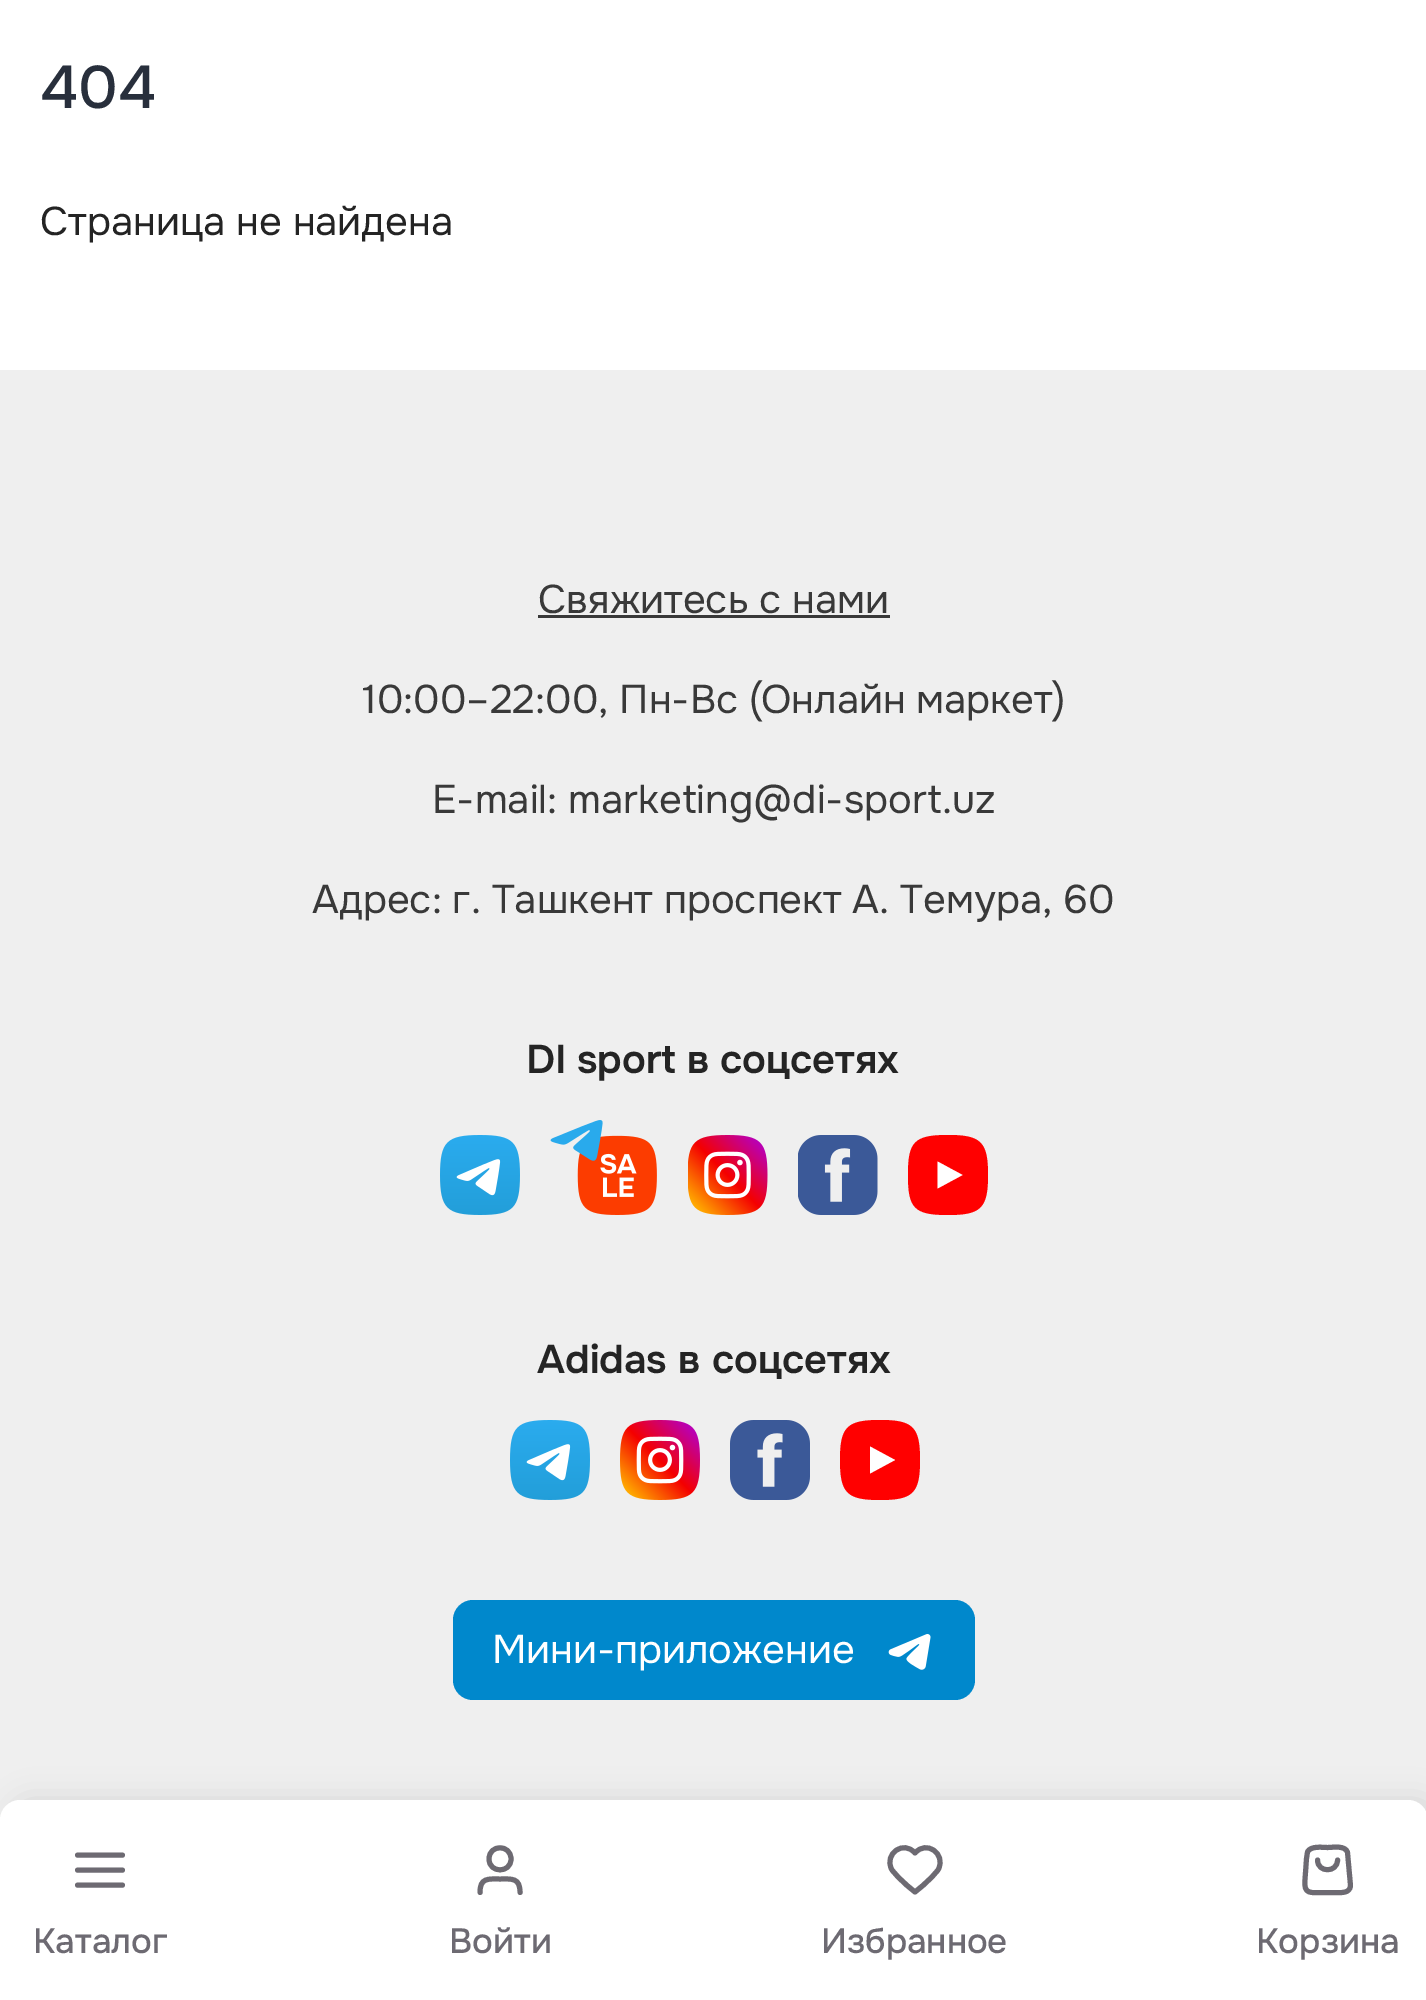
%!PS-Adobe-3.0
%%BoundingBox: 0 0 1426 2000
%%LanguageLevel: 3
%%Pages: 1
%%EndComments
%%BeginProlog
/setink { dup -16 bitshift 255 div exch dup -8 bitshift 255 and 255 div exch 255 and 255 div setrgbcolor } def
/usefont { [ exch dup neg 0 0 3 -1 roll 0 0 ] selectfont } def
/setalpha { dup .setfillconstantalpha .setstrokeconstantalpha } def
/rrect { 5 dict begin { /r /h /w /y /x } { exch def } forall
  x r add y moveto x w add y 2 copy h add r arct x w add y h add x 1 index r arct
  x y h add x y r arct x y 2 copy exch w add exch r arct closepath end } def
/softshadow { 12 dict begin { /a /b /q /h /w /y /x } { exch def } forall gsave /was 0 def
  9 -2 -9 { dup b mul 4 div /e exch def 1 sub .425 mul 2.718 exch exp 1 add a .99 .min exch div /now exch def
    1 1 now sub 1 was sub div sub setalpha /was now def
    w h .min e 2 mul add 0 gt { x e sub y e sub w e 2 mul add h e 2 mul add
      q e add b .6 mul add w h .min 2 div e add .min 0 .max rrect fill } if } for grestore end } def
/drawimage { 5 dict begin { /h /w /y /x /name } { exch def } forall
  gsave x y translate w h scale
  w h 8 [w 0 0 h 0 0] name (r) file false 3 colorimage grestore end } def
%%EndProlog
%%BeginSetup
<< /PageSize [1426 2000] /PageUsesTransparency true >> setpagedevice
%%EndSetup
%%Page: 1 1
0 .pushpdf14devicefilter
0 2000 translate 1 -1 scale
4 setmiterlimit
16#FFFFFF setink
0 0 1426 2000 rectfill
/Onest-Medium 60 usefont
16#282F3C setink
40 108 moveto (404) show
/Onest-Regular 40 usefont
16#242424 setink
40 235 moveto (Страница не найдена) show
16#EFEFEF setink
0 370 1426 1450 rectfill
16#393939 setink
538 613 moveto (Свяжитесь с нами) show
538 615 352 3 rectfill
[
    [(10:00–22:00, Пн-Вс \(Онлайн маркет\)) 362 713]
    [(E-mail: marketing@di-sport.uz) 432 813]
    [(Адрес: г. Ташкент проспект А. Темура, 60) 312 913]
] { aload pop moveto show } forall
/Onest-SemiBold 40 usefont
16#242424 setink
526 1073 moveto -0.5 0 32 (DI sport в соцсетях) widthshow
(img1.raw) 440 1135 80 80 drawimage
(img2.raw) 550 1120 107 95 drawimage
(img3.raw) 688 1135 80 80 drawimage
(img4.raw) 798 1135 80 80 drawimage
16#FF0000 setink
948 1135 moveto 981 1135 988 1142 988 1175 curveto 988 1208 981 1215 948 1215 curveto 914 1215 908 1208 908 1175 curveto 908 1142 914 1135 948 1135 curveto closepath fill
16#FFFFFF setink
937.5 1188.5 moveto 962.5 1175 lineto 937.5 1161.5 lineto closepath fill
16#242424 setink
537 1373 moveto (Adidas в соцсетях) show
(img1.raw) 510 1420 80 80 drawimage
(img5.raw) 620 1420 80 80 drawimage
(img6.raw) 730 1420 80 80 drawimage
16#FF0000 setink
880 1420 moveto 913 1420 920 1427 920 1460 curveto 920 1493 913 1500 880 1500 curveto 847 1500 840 1493 840 1460 curveto 840 1427 847 1420 880 1420 curveto closepath fill
16#FFFFFF setink
870 1473.5 moveto 895 1460 lineto 870 1446.5 lineto closepath fill
16#0088CC setink
453 1600 522 100 20 rrect fill
/Onest-Regular 40 usefont
16#FFFFFF setink
492 1663 moveto (Мини-приложение) show
(img7.raw) 888 1634 43 36 drawimage
16#000000 setink
10 1800 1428 200 20 15 0.1 softshadow
16#FFFFFF setink
20 1800 moveto 1408 1800 lineto 1419 1800 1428 1809 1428 1820 curveto 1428 2000 lineto 0 2000 lineto 0 1820 lineto 0 1809 9 1800 20 1800 curveto closepath fill
16#6D6A72 setink
5 setlinewidth
1 setlinecap
1 setlinejoin
77.5 1870 moveto 122.5 1870 lineto 77.5 1855 moveto 122.5 1855 lineto 77.5 1885 moveto 122.5 1885 lineto stroke
/Onest-Medium 35 usefont
33 1953 moveto (Каталог) show
520 1892.5 moveto 520 1877.5 512 1879 500 1879 curveto 488 1879 480 1877.5 480 1892.5 curveto 511 1859 moveto 511 1873.5 489 1873.5 489 1859 curveto 489 1844 511 1844 511 1859 curveto closepath stroke
449 1953 moveto (Войти) show
915 1853 moveto 903.5 1839.5 884 1854 891.5 1869 curveto 895 1875 901.5 1880 906.5 1885 curveto 915 1892 lineto 923.5 1885 lineto 928.5 1880 935 1875 938.5 1869 curveto 946 1854 926.5 1839.5 915 1853 curveto closepath stroke
821 1953 moveto (Избранное) show
1337.5 1860 moveto 1337.5 1873 1317.5 1873 1317.5 1860 curveto 1306.5 1858.5 moveto 1305 1879.5 lineto 1303.5 1895 1310.5 1892.5 1324 1892.5 curveto 1334.5 1892.5 lineto 1340 1892.5 1350 1894 1350.5 1885.5 curveto 1347.5 1852.5 lineto 1345.5 1845 1333 1847.5 1327.5 1847.5 curveto 1322.5 1847.5 1310.5 1845.5 1307.5 1852 curveto closepath stroke
1256 1953 moveto (Корзина) show
.poppdf14devicefilter showpage
%%EOF
